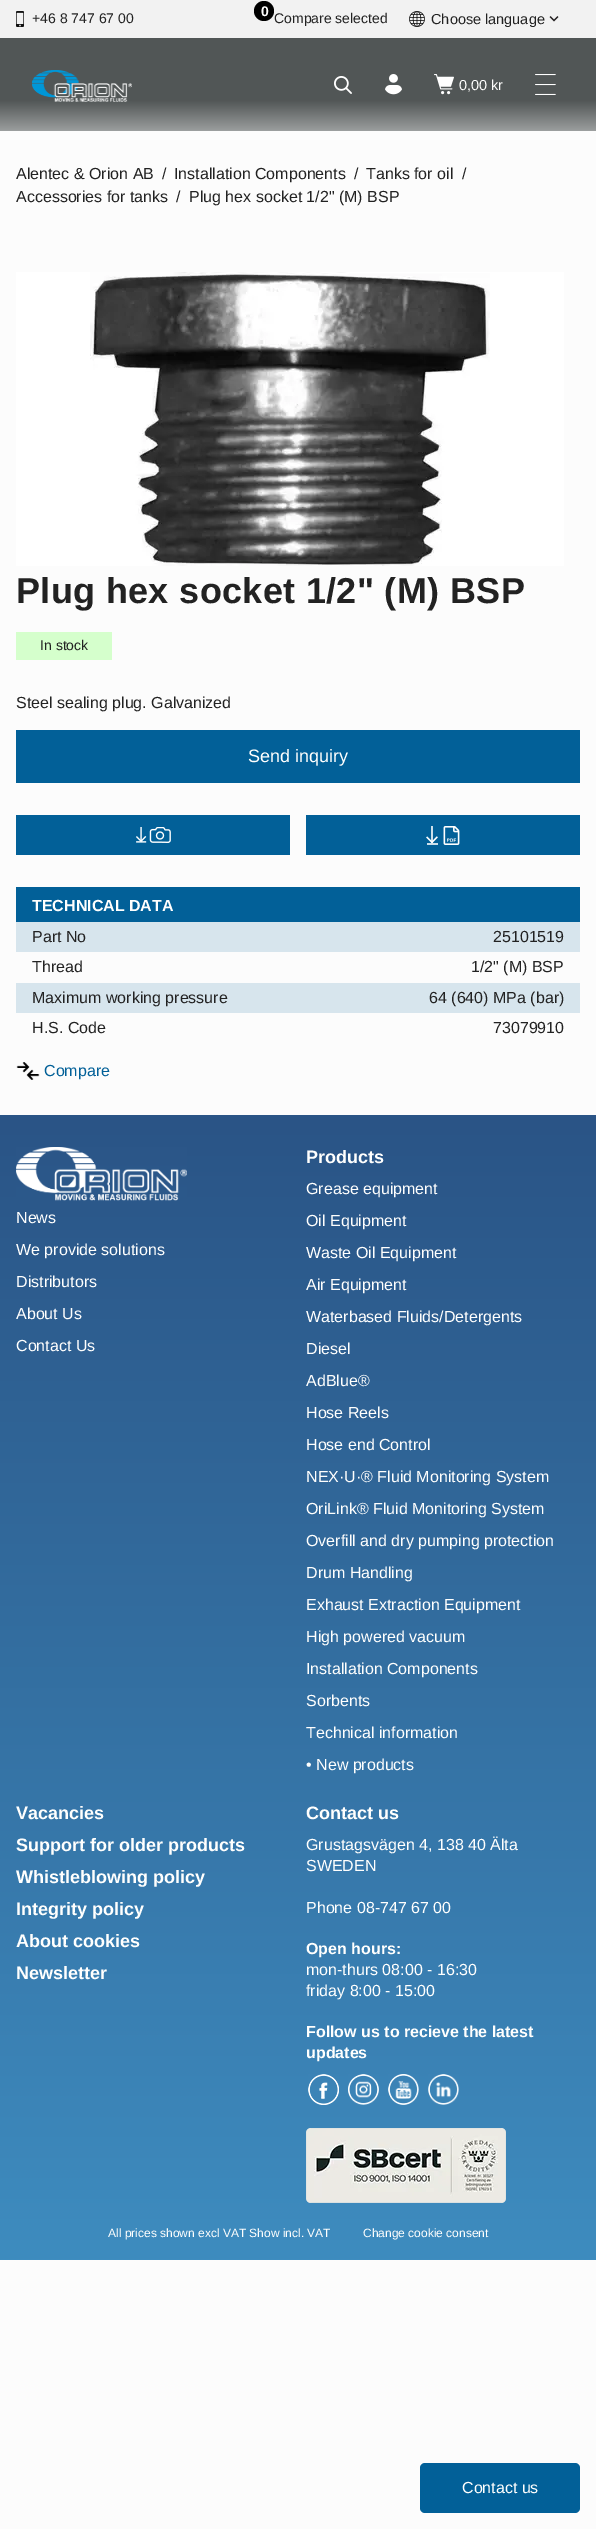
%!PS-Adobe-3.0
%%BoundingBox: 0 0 596 2529
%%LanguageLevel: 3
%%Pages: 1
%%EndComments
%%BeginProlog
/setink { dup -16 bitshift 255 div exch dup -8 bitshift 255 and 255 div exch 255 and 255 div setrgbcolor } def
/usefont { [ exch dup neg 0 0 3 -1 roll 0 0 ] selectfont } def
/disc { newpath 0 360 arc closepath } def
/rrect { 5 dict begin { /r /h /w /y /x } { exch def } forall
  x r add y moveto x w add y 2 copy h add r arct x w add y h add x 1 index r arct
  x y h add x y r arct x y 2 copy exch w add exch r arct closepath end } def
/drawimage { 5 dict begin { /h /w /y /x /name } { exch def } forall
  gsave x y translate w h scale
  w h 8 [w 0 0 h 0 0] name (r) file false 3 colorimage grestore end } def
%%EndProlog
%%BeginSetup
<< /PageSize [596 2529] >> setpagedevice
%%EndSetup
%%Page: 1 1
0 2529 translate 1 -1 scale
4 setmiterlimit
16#FCFCFC setink
0 0 596 2529 rectfill
16#F2F2F2 setink
0 0 596 38 rectfill
(img1.raw) 16 11 8 16 drawimage
/LiberationSans-Regular 14 usefont
16#222222 setink
32 23 moveto (+46 8 747 67 00) show
16#000000 setink
264 11 10 disc fill
/LiberationSans-Bold 14 usefont
16#FFFFFE setink
261 16 moveto (0) show
/LiberationSans-Regular 14 usefont
16#222222 setink
274 23 moveto (Compare selected) show
(img2.raw) 409 11 16 16 drawimage
/LiberationSans-Regular 14.5 usefont
431 24 moveto (Choose language) show
(img3.raw) 549 16 10 6 drawimage
gsave 0 38 moveto 596 38 lineto 596 131 lineto 0 131 lineto closepath clip newpath
<< /ShadingType 2 /ColorSpace /DeviceRGB /Coords [298 38 298 131] /Extend [true true] /Function << /FunctionType 3 /Domain [0 1] /Functions [<< /FunctionType 2 /Domain [0 1] /C0 [0.318 0.337 0.337] /C1 [0.318 0.337 0.337] /N 1 >> << /FunctionType 2 /Domain [0 1] /C0 [0.318 0.337 0.337] /C1 [0.608 0.62 0.62] /N 1 >>] /Bounds [0.67] /Encode [0 1 0 1] >> >> shfill grestore
(img4.raw) 32 70 100 32 drawimage
(img5.raw) 334 76 18 18 drawimage
(img6.raw) 385 74 17 21 drawimage
(img7.raw) 434 74 20 21 drawimage
16#FFFFFE setink
459 90 moveto (0,00 kr) show
(img8.raw) 535 74 21 21 drawimage
/LiberationSans-Regular 16 usefont
16#222222 setink
[
    [(Alentec & Orion AB) 16 179]
    [(/) 162 179]
    [(Installation Components) 174 179]
    [(/) 354 179]
    [(Tanks for oil) 366 179]
    [(/) 462 179]
    [(Accessories for tanks) 16 202]
    [(/) 176 202]
    [(Plug hex socket 1/2" \(M\) BSP) 189 202]
] { aload pop moveto show } forall
16#FFFFFF setink
16 272 548 294 rectfill
(img9.raw) 90 272 400 294 drawimage
/LiberationSans-Bold 36 usefont
16#222222 setink
16 603 moveto 0.35 0 (Plug hex socket 1/2" \(M\) BSP) ashow
16#D5FFCC setink
16 632 96 28 rectfill
/LiberationSans-Regular 14 usefont
16#222222 setink
40 650 moveto (In stock) show
/LiberationSans-Regular 16 usefont
16 708 moveto (Steel sealing plug. Galvanized) show
16#026098 setink
16 730 564 53 rectfill
/LiberationSans-Regular 18 usefont
16#FFFFFE setink
248 762 moveto (Send inquiry) show
16#026098 setink
16 815 274 40 rectfill
(img10.raw) 136 827 35 16 drawimage
306 815 274 40 rectfill
(img11.raw) 426 826 34 19 drawimage
16 887 564 35 rectfill
/LiberationSans-Bold 16 usefont
16#FFFFFE setink
32 911 moveto (TECHNICAL DATA) show
16#D7E5ED setink
16 922 564 30 rectfill
/LiberationSans-Regular 16 usefont
16#222222 setink
[
    [(Part No) 32 942]
    [(25101519) 493 942]
    [(Thread) 32 972]
    [(1/2" \(M\) BSP) 471 972]
] { aload pop moveto show } forall
16#D7E5ED setink
16 983 564 30 rectfill
16#222222 setink
[
    [(Maximum working pressure) 32 1003]
    [(64 \(640\) MPa \(bar\)) 429 1003]
    [(H.S. Code) 32 1033]
    [(73079910) 493 1033]
] { aload pop moveto show } forall
(img12.raw) 16 1062 24 18 drawimage
16#026098 setink
44 1076 moveto (Compare) show
gsave 0 1115 moveto 596 1115 lineto 596 2260 lineto 0 2260 lineto closepath clip newpath
<< /ShadingType 2 /ColorSpace /DeviceRGB /Coords [298 1115 298 2260] /Extend [true true] /Function << /FunctionType 2 /Domain [0 1] /C0 [0.165 0.329 0.525] /C1 [0.243 0.549 0.749] /N 1 >> >> shfill grestore
(img13.raw) 16 1147 171 54 drawimage
16#FFFFFE setink
[
    [(News) 16 1223]
    [(We provide solutions) 16 1255]
    [(Distributors) 16 1287]
    [(About Us) 16 1319]
    [(Contact Us) 16 1351]
] { aload pop moveto show } forall
/LiberationSans-Bold 18 usefont
306 1163 moveto (Products) show
/LiberationSans-Regular 16 usefont
[
    [(Grease equipment) 306 1194]
    [(Oil Equipment) 306 1226]
    [(Waste Oil Equipment) 306 1258]
    [(Air Equipment) 306 1290]
    [(Waterbased Fluids/Detergents) 306 1322]
    [(Diesel) 306 1354]
    [(AdBlue®) 306 1386]
    [(Hose Reels) 306 1418]
    [(Hose end Control) 306 1450]
    [(NEX·U·® Fluid Monitoring System) 306 1482]
    [(OriLink® Fluid Monitoring System) 306 1514]
    [(Overfill and dry pumping protection) 306 1546]
    [(Drum Handling) 306 1578]
    [(Exhaust Extraction Equipment) 306 1610]
    [(High powered vacuum) 306 1642]
    [(Installation Components) 306 1674]
    [(Sorbents) 306 1706]
    [(Technical information) 306 1738]
    [(• New products) 306 1770]
] { aload pop moveto show } forall
/LiberationSans-Bold 18 usefont
[
    [(Vacancies) 16 1819]
    [(Support for older products) 16 1851]
    [(Whistleblowing policy) 16 1883]
    [(Integrity policy) 16 1915]
    [(About cookies) 16 1947]
    [(Newsletter) 16 1979]
    [(Contact us) 306 1819]
] { aload pop moveto show } forall
/LiberationSans-Regular 16 usefont
[
    [(Grustagsvägen 4, 138 40 Älta) 306 1850]
    [(SWEDEN) 306 1871]
    [(Phone 08-747 67 00) 306 1913]
] { aload pop moveto show } forall
/LiberationSans-Bold 16 usefont
306 1954 moveto (Open hours:) show
/LiberationSans-Regular 16 usefont
306 1975 moveto (mon-thurs 08:00 - 16:30) show
306 1996 moveto (friday 8:00 - 15:00) show
/LiberationSans-Bold 16 usefont
306 2037 moveto (Follow us to recieve the latest) show
306 2058 moveto (updates) show
(img14.raw) 308 2074 31 31 drawimage
(img15.raw) 348 2074 31 31 drawimage
(img16.raw) 388 2074 31 31 drawimage
(img17.raw) 428 2074 31 31 drawimage
(img18.raw) 306 2128 200 75 drawimage
/LiberationSans-Regular 12 usefont
108 2237 moveto (All prices shown excl VAT Show incl. VAT) show
363 2237 moveto (Change cookie consent) show
16#026098 setink
420 2463 160 50 5 rrect fill
/LiberationSans-Regular 16 usefont
16#FFFFFE setink
462 2493 moveto (Contact us) show
showpage
%%EOF
